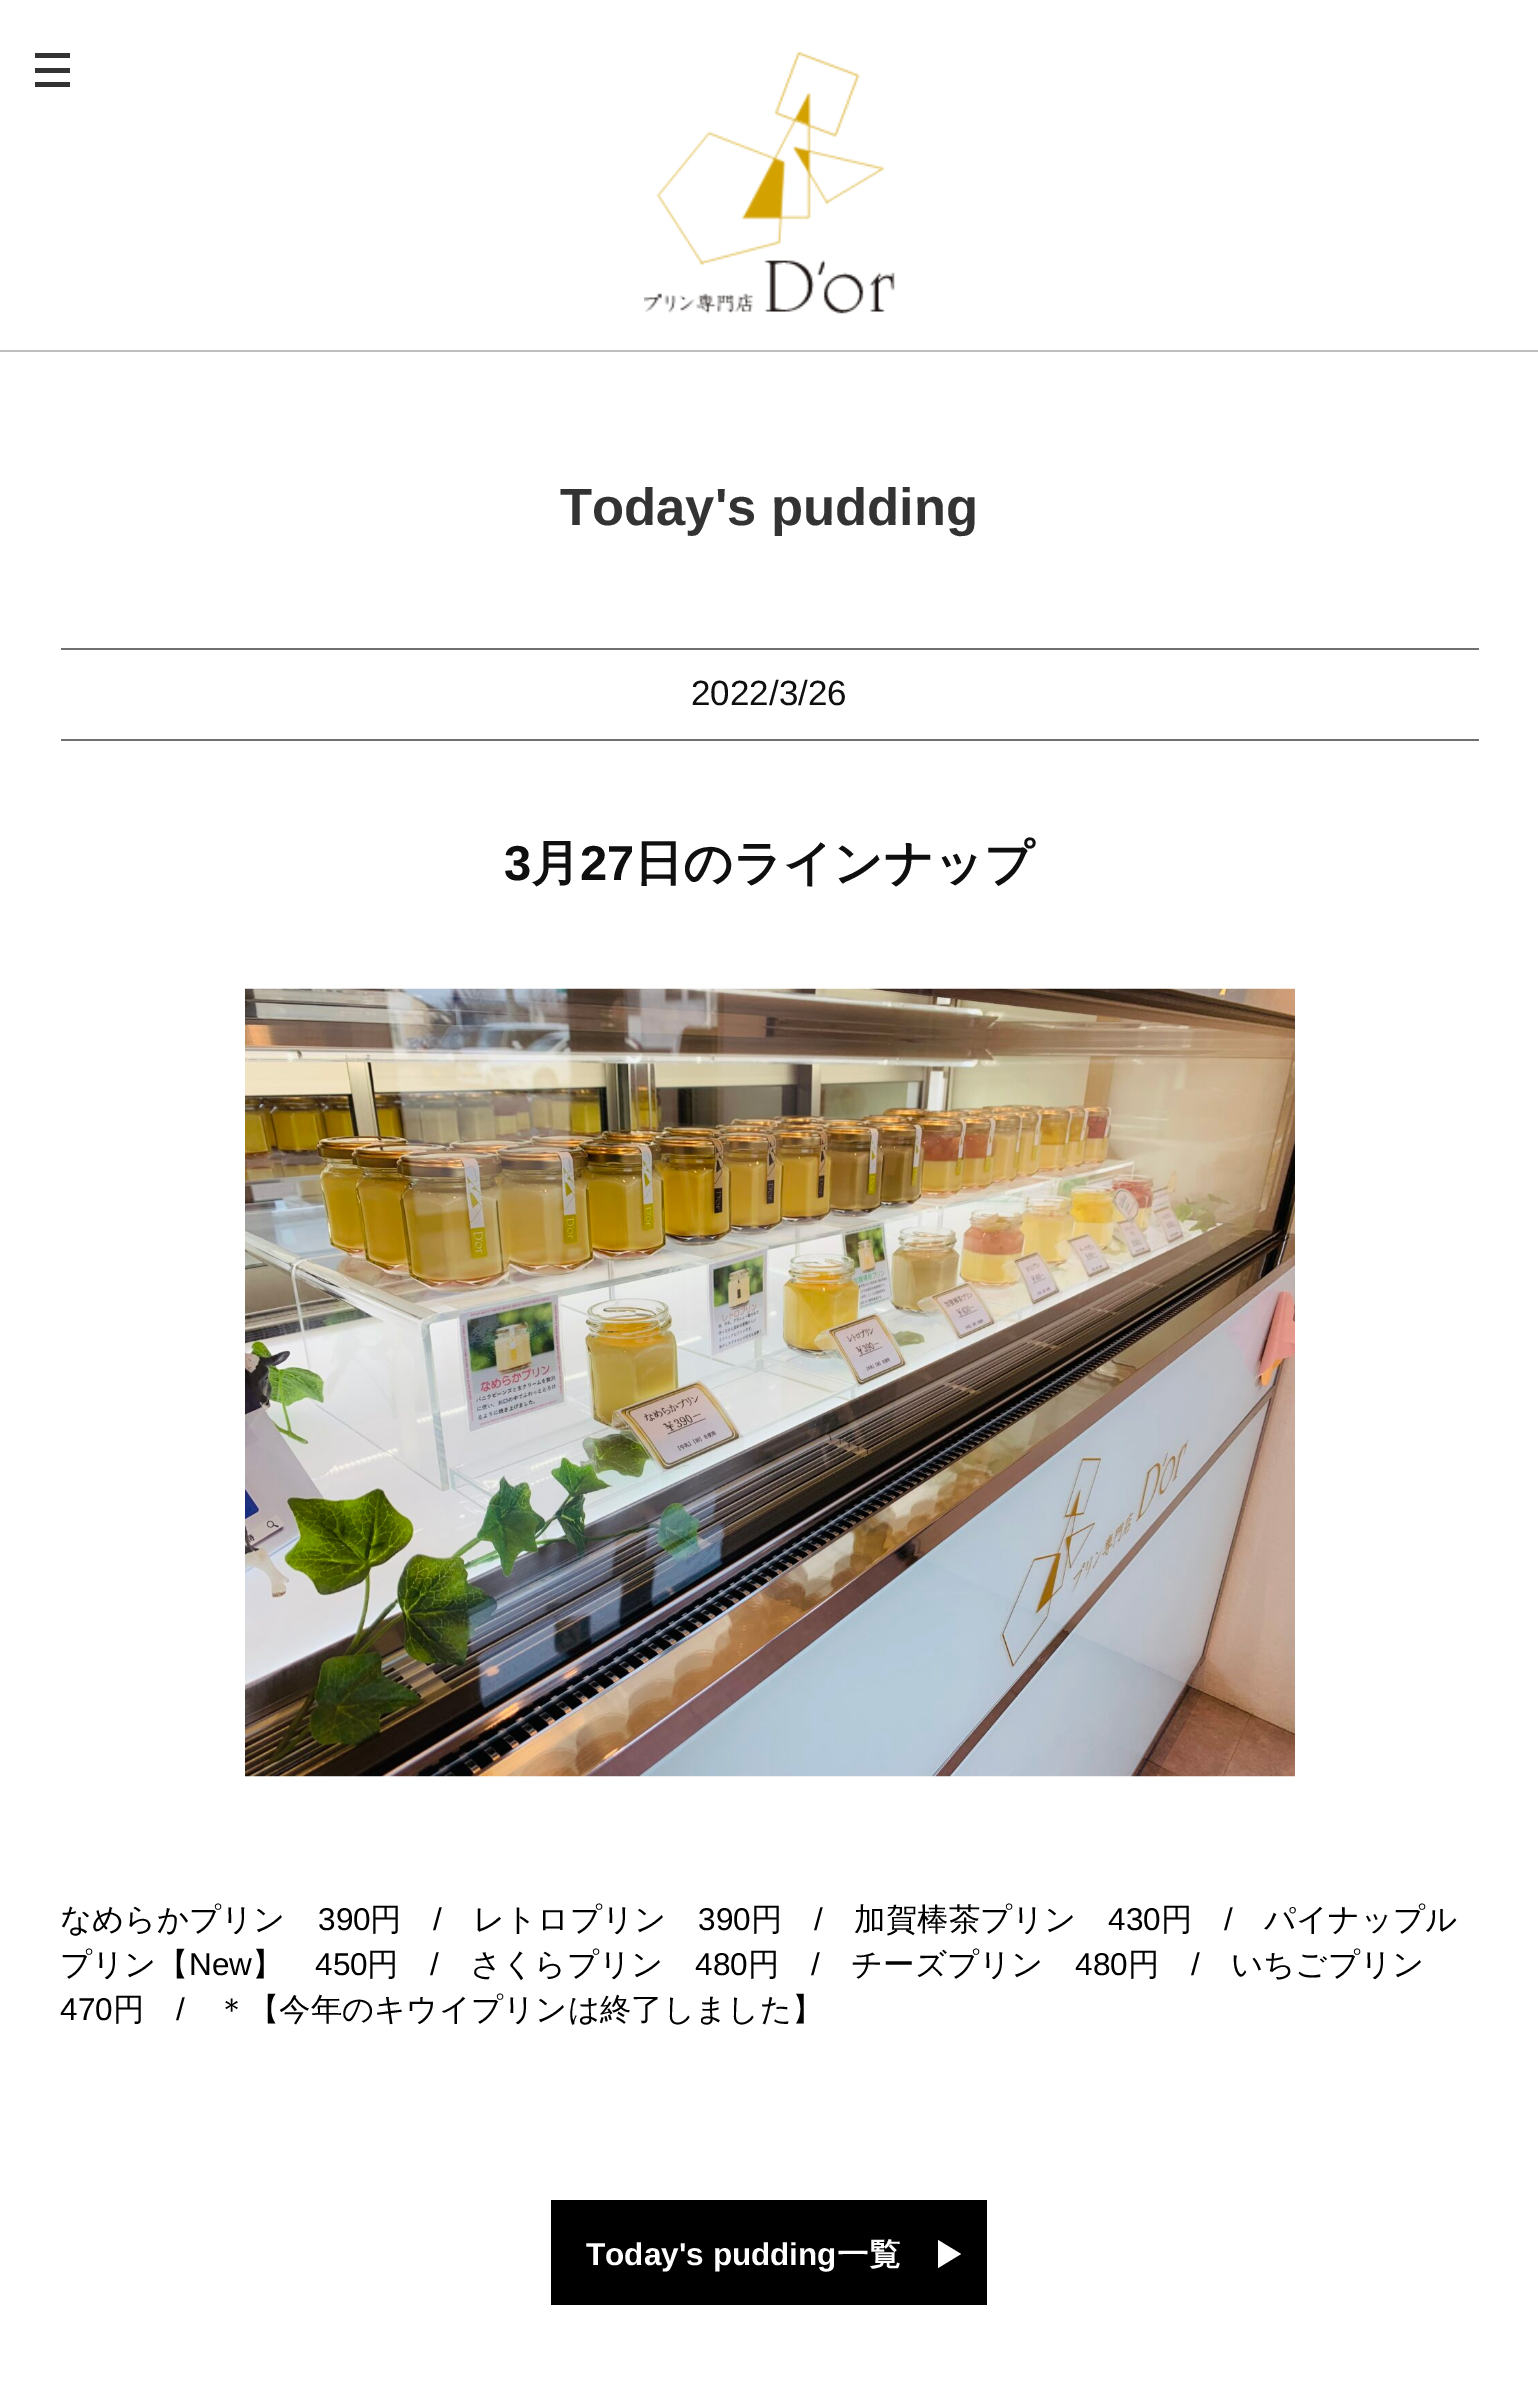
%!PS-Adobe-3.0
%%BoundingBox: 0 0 1538 2408
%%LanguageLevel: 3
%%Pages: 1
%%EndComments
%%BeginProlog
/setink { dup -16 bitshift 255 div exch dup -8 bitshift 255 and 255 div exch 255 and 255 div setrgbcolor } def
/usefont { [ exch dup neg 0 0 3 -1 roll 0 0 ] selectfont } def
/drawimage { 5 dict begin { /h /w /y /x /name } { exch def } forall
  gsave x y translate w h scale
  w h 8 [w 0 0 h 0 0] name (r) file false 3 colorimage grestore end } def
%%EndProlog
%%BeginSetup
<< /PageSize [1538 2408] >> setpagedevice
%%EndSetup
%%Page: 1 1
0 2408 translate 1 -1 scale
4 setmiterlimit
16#FFFFFF setink
0 0 1538 2408 rectfill
[
    [35 53 35 5 16#333333]
    [35 68 35 5 16#333333]
    [35 82 35 5 16#333333]
] { aload pop setink rectfill } forall
(img1.raw) 644 52 251 262 drawimage
16#BEBEBE setink
0 350 1538 2 rectfill
/LiberationSans-Bold 52.5 usefont
16#333333 setink
560 525 moveto (Today's pudding) show
16#707070 setink
61 648 1418 2 rectfill
61 739 1418 2 rectfill
/LiberationSans-Regular 35 usefont
16#0F0F0F setink
691 705 moveto (2022/3/26) show
/LiberationSans-Bold 49 usefont
504 880 moveto (3) show
/WenQuanYiZenHei-Bold 49 usefont
531 880 moveto (月) show
/LiberationSans-Bold 49 usefont
580 880 moveto (27) show
/WenQuanYiZenHei-Bold 49 usefont
634 880 moveto (日のラインナップ) show
(img2.raw) 245 988 1050 789 drawimage
/WenQuanYiZenHei-Medium 31.5 usefont
16#000000 setink
60 1930 moveto (なめらかプリン) show
/LiberationSans-Regular 31.5 usefont
318 1930 moveto (390) show
/WenQuanYiZenHei-Medium 31.5 usefont
370 1930 moveto (円) show
/LiberationSans-Regular 31.5 usefont
433 1930 moveto (/) show
/WenQuanYiZenHei-Medium 31.5 usefont
473 1930 moveto (レトロプリン) show
/LiberationSans-Regular 31.5 usefont
698 1930 moveto (390) show
/WenQuanYiZenHei-Medium 31.5 usefont
751 1930 moveto (円) show
/LiberationSans-Regular 31.5 usefont
814 1930 moveto (/) show
/WenQuanYiZenHei-Medium 31.5 usefont
854 1930 moveto (加賀棒茶プリン) show
/LiberationSans-Regular 31.5 usefont
1108 1930 moveto (430) show
/WenQuanYiZenHei-Medium 31.5 usefont
1161 1930 moveto (円) show
/LiberationSans-Regular 31.5 usefont
1224 1930 moveto (/) show
/WenQuanYiZenHei-Medium 31.5 usefont
1264 1930 moveto (パイナップル) show
60 1975 moveto (プリン【) show
/LiberationSans-Regular 31.5 usefont
189 1975 moveto (New) show
/WenQuanYiZenHei-Medium 31.5 usefont
252 1975 moveto (】) show
/LiberationSans-Regular 31.5 usefont
315 1975 moveto (450) show
/WenQuanYiZenHei-Medium 31.5 usefont
367 1975 moveto (円) show
/LiberationSans-Regular 31.5 usefont
430 1975 moveto (/) show
/WenQuanYiZenHei-Medium 31.5 usefont
470 1975 moveto (さくらプリン) show
/LiberationSans-Regular 31.5 usefont
695 1975 moveto (480) show
/WenQuanYiZenHei-Medium 31.5 usefont
748 1975 moveto (円) show
/LiberationSans-Regular 31.5 usefont
811 1975 moveto (/) show
/WenQuanYiZenHei-Medium 31.5 usefont
851 1975 moveto (チーズプリン) show
/LiberationSans-Regular 31.5 usefont
1075 1975 moveto (480) show
/WenQuanYiZenHei-Medium 31.5 usefont
1128 1975 moveto (円) show
/LiberationSans-Regular 31.5 usefont
1191 1975 moveto (/) show
/WenQuanYiZenHei-Medium 31.5 usefont
1231 1975 moveto (いちごプリン) show
/LiberationSans-Regular 31.5 usefont
60 2020 moveto (470) show
/WenQuanYiZenHei-Medium 31.5 usefont
113 2020 moveto (円) show
/LiberationSans-Regular 31.5 usefont
176 2020 moveto (/) show
/WenQuanYiZenHei-Medium 31.5 usefont
216 2020 moveto (＊【今年のキウイプリンは終了しました】) show
551 2200 436 105 rectfill
/LiberationSans-Bold 31.5 usefont
16#FFFFFF setink
586 2265 moveto (Today's pudding) show
/WenQuanYiZenHei-Bold 31.5 usefont
837 2265 moveto (一覧) show
938 2268 moveto 938 2240 lineto 961 2254 lineto closepath fill
showpage
%%EOF
